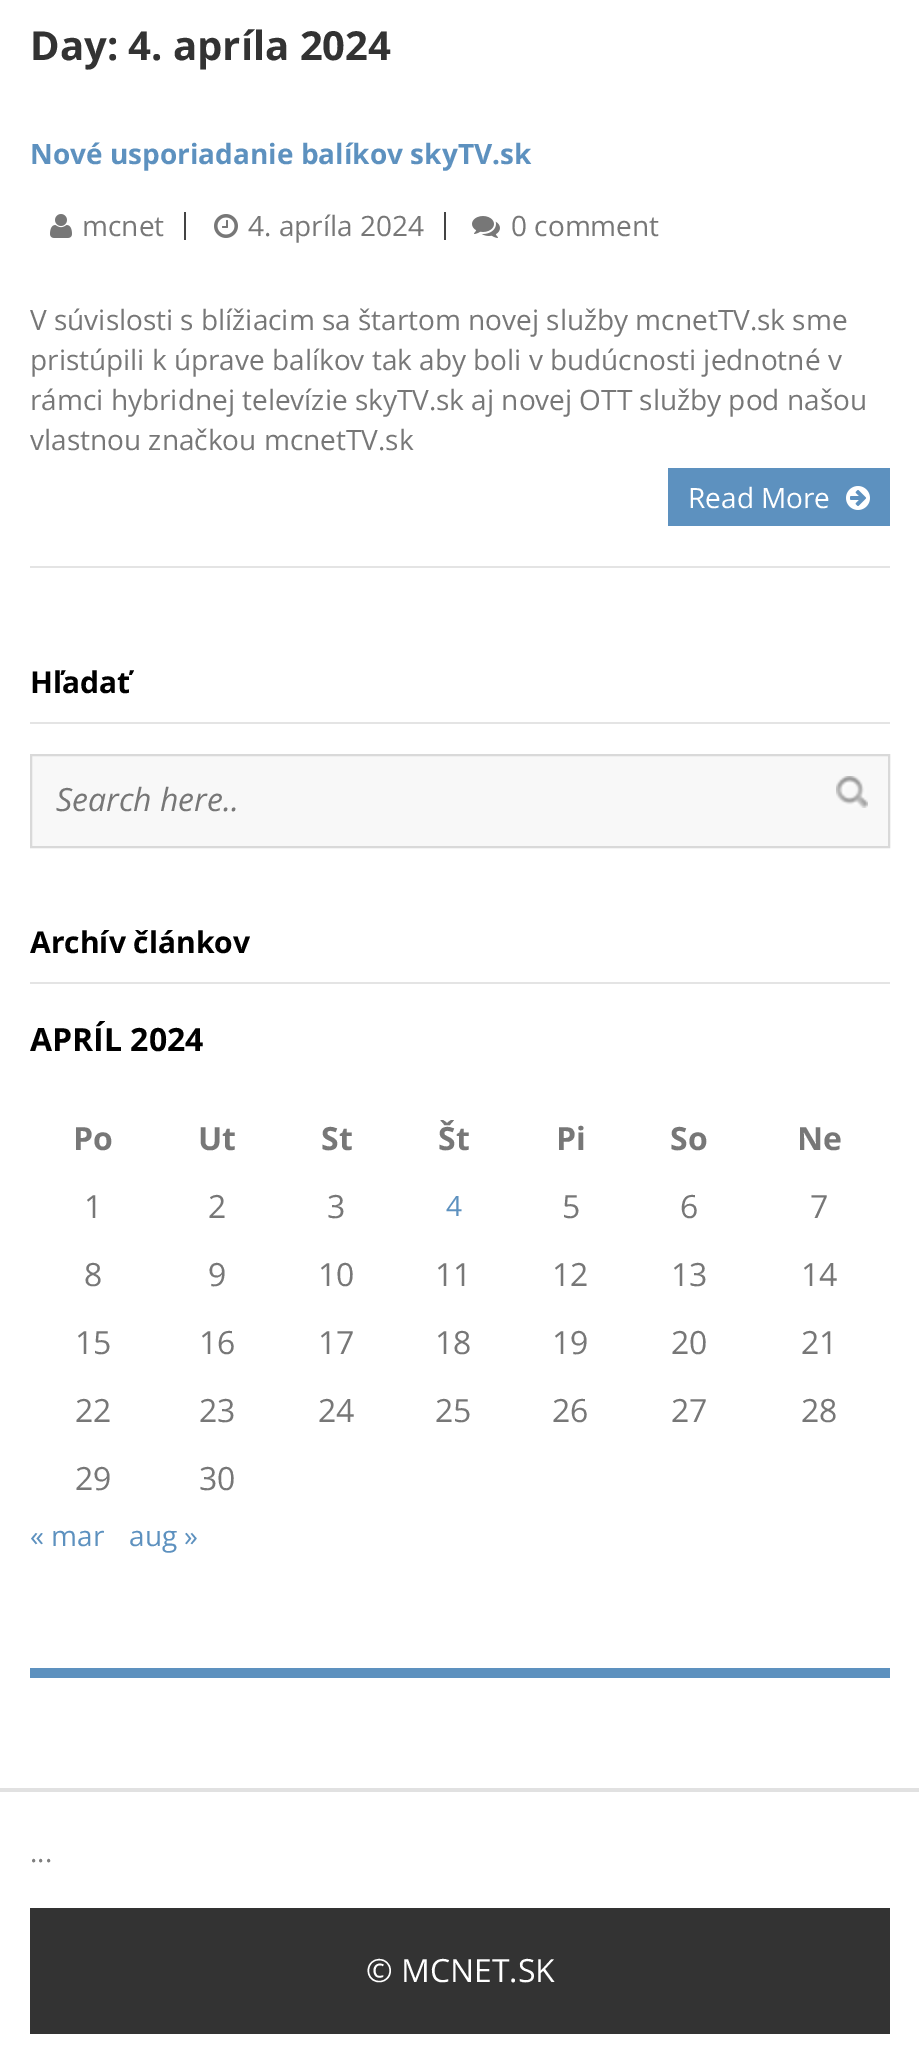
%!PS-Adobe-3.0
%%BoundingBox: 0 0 919 2048
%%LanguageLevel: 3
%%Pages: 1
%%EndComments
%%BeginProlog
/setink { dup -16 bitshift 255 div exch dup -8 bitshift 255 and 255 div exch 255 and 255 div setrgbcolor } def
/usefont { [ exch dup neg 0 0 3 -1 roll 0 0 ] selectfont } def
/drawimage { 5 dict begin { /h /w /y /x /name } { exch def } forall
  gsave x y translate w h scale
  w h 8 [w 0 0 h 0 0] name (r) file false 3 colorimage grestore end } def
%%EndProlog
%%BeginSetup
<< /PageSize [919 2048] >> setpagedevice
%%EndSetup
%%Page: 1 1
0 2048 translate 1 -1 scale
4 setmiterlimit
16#FFFFFF setink
0 0 919 2048 rectfill
/OpenSans-Bold 40 usefont
16#333333 setink
30 60 moveto (Day: 4. apríla 2024) show
16#E4E4E4 setink
30 566 860 2 rectfill
/OpenSans-Bold 28 usefont
16#5D91BF setink
30 164 moveto (Nové usporiadanie balíkov skyTV.sk) show
16#444444 setink
184 212 2 28 rectfill
(img1.raw) 50 214 22 24 drawimage
/OpenSans-Regular 28 usefont
16#777777 setink
82 236 moveto (mcnet) show
16#444444 setink
444 212 2 28 rectfill
(img2.raw) 214 214 24 24 drawimage
16#777777 setink
248 236 moveto (4. apríla 2024) show
(img3.raw) 472 216 28 22 drawimage
[
    [(0 comment) 511 236]
    [(V súvislosti s blížiacim sa štartom novej služby mcnetTV.sk sme) 30 330]
    [(pristúpili k úprave balíkov tak aby boli v budúcnosti jednotné v) 30 370]
    [(rámci hybridnej televízie skyTV.sk aj novej OTT služby pod našou) 30 410]
    [(vlastnou značkou mcnetTV.sk) 30 450]
] { aload pop moveto show } forall
16#5D91BF setink
668 468 222 58 rectfill
16#FFFFFF setink
688 508 moveto (Read More) show
(img4.raw) 846 486 24 24 drawimage
16#5D91BF setink
30 1668 860 10 rectfill
16#E4E4E4 setink
30 722 860 2 rectfill
/OpenSans-Bold 30 usefont
16#000000 setink
30 693 moveto (Hľadať) show
16#F8F8F8 setink
31 755 moveto 889 755 lineto 889 847 lineto 31 847 lineto closepath gsave fill grestore
16#D9D9D9 setink
2 setlinewidth
stroke
/OpenSans-Italic 32 usefont
16#777777 setink
56 811 moveto (Search here..) show
(img5.raw) 836 776 32 32 drawimage
16#E4E4E4 setink
30 982 860 2 rectfill
/OpenSans-Bold 30 usefont
16#000000 setink
30 953 moveto (Archív článkov) show
/OpenSans-Bold 32 usefont
30 1051 moveto (APRÍL 2024) show
16#777777 setink
[
    [(Po) 73 1150]
    [(Ut) 198 1150]
    [(St) 321 1150]
    [(Št) 438 1150]
    [(Pi) 556 1150]
    [(So) 670 1150]
    [(Ne) 797 1150]
] { aload pop moveto show } forall
/OpenSans-Regular 32 usefont
[
    [(1) 84 1218]
    [(2) 208 1218]
    [(3) 327 1218]
] { aload pop moveto show } forall
/OpenSans-Regular 28 usefont
16#5D91BF setink
446 1216 moveto (4) show
/OpenSans-Regular 32 usefont
16#777777 setink
[
    [(5) 562 1218]
    [(6) 680 1218]
    [(7) 810 1218]
    [(8) 84 1286]
    [(9) 208 1286]
    [(10) 318 1286]
    [(11) 435 1286]
    [(12) 552 1286]
    [(13) 671 1286]
    [(14) 801 1286]
    [(15) 75 1354]
    [(16) 199 1354]
    [(17) 318 1354]
    [(18) 435 1354]
    [(19) 552 1354]
    [(20) 671 1354]
    [(21) 801 1354]
    [(22) 75 1422]
    [(23) 199 1422]
    [(24) 318 1422]
    [(25) 435 1422]
    [(26) 552 1422]
    [(27) 671 1422]
    [(28) 801 1422]
    [(29) 75 1490]
    [(30) 199 1490]
] { aload pop moveto show } forall
/OpenSans-Regular 28 usefont
16#5D91BF setink
30 1546 moveto (« mar) show
129 1546 moveto (aug ») show
16#E1E1E1 setink
0 1788 919 4 rectfill
16#808080 setink
30 1862 moveto (...) show
16#333333 setink
30 1908 860 126 rectfill
/OpenSans-Regular 32 usefont
16#FFFFFF setink
366 1982 moveto (© MCNET.SK) show
showpage
%%EOF
